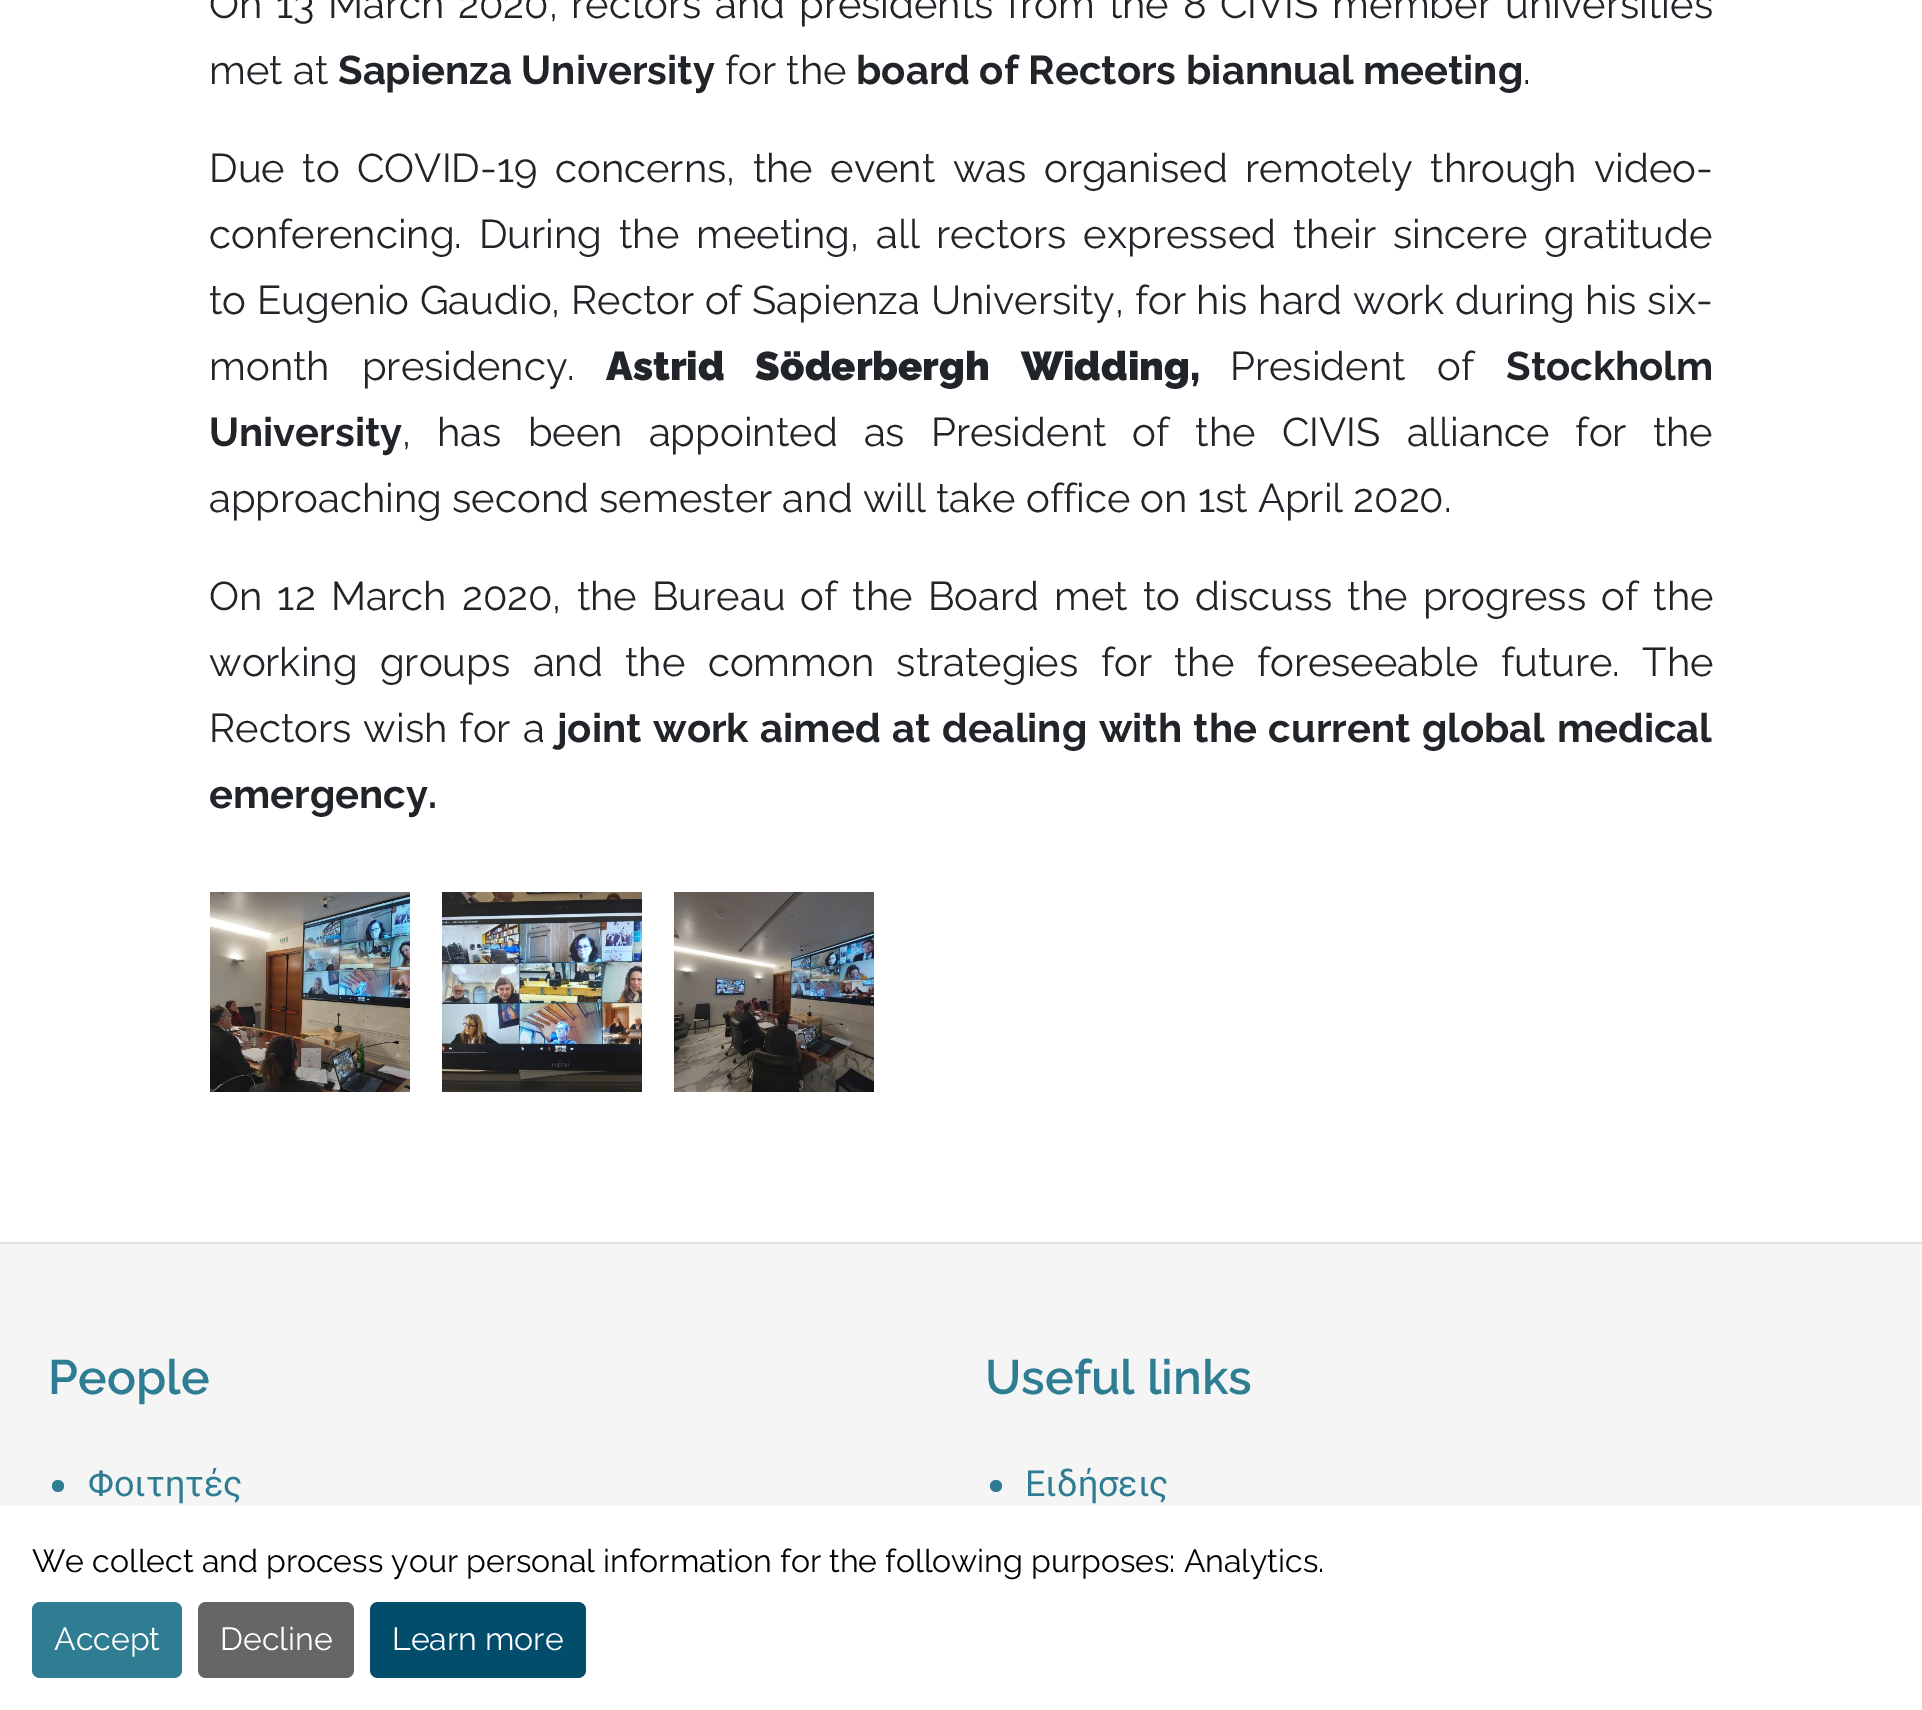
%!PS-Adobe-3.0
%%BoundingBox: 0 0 1922 1710
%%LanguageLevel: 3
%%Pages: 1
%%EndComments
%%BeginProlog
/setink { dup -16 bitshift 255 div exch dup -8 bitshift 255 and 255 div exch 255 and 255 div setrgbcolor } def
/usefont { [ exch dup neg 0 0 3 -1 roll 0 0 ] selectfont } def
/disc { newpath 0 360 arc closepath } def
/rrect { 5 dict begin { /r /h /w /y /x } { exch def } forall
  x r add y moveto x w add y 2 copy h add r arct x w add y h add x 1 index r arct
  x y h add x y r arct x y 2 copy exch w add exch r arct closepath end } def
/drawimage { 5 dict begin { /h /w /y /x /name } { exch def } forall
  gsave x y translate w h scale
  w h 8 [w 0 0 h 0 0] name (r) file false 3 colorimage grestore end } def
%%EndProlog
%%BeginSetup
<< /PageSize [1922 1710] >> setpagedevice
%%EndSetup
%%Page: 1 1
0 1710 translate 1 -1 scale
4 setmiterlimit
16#FFFFFF setink
0 0 1922 1710 rectfill
/Raleway-Thin 40 usefont
16#212529 setink
209 18 moveto 3.5 0 32 (On 13 March 2020, rectors and presidents from the 8 CIVIS member universities) widthshow
209 84 moveto (met at) show
/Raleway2-Thin 40 usefont
338 84 moveto (Sapienza University) show
/Raleway-Thin 40 usefont
725 84 moveto (for the) show
/Raleway2-Thin 40 usefont
856 84 moveto (board of Rectors) show
1186 84 moveto (biannual meeting) show
/Raleway-Thin 40 usefont
1523 84 moveto (.) show
209 182 moveto 7.25 0 32 (Due to COVID-19 concerns, the event was organised remotely through video-) widthshow
209 248 moveto 6.75 0 32 (conferencing. During the meeting, all rectors expressed their sincere gratitude) widthshow
209 314 moveto 0.5 0 32 (to Eugenio Gaudio, Rector of Sapienza University, for his hard work during his six-) widthshow
209 380 moveto 22 0 32 (month presidency.) widthshow
/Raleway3-Thin 40 usefont
606 380 moveto 22 0 32 (Astrid Söderbergh Widding,) widthshow
/Raleway-Thin 40 usefont
1230 380 moveto (President) show
1437 380 moveto (of) show
/Raleway2-Thin 40 usefont
1506 380 moveto (Stockholm) show
209 446 moveto (University) show
/Raleway-Thin 40 usefont
402 446 moveto 15.9 0 32 (, has been appointed as President of the CIVIS alliance for the) widthshow
209 512 moveto (approaching second semester and will take office on 1st April 2020.) show
209 610 moveto 4.9 0 32 (On 12 March 2020, the Bureau of the Board met to discuss the progress of the) widthshow
209 676 moveto 12.25 0 32 (working groups and the common strategies for the foreseeable future. The) widthshow
209 742 moveto 2 0 32 (Rectors wish for a) widthshow
/Raleway2-Thin 40 usefont
557 742 moveto 2 0 32 (joint work aimed at dealing with the current global medical) widthshow
209 808 moveto (emergency.) show
(img1.raw) 210 892 200 200 drawimage
(img2.raw) 442 892 200 200 drawimage
(img3.raw) 674 892 200 200 drawimage
16#F5F5F5 setink
0 1244 1922 262 rectfill
16#DEE2E6 setink
0 1242 1922 2 rectfill
/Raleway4-Thin 48.25 usefont
16#2F7D92 setink
48 1394 moveto (People) show
58 1486 6 disc fill
/Roboto-Regular 36 usefont
88 1496 moveto (Φοιτητές) show
/Raleway4-Thin 48.25 usefont
985 1394 moveto (Useful links) show
996 1486 6 disc fill
/Roboto-Regular 36 usefont
1025 1496 moveto (Ειδήσεις) show
/Raleway-Thin 32 usefont
16#000000 setink
32 1572 moveto (We collect and process your personal information for the following purposes: Analytics.) show
16#2F7D92 setink
32 1602 150 76 8 rrect fill
16#FFFFFF setink
54 1650 moveto (Accept) show
16#666666 setink
198 1602 156 76 8 rrect fill
16#FFFFFF setink
220 1650 moveto (Decline) show
16#034D6C setink
370 1602 216 76 8 rrect fill
16#FFFFFF setink
392 1650 moveto (Learn more) show
showpage
%%EOF
